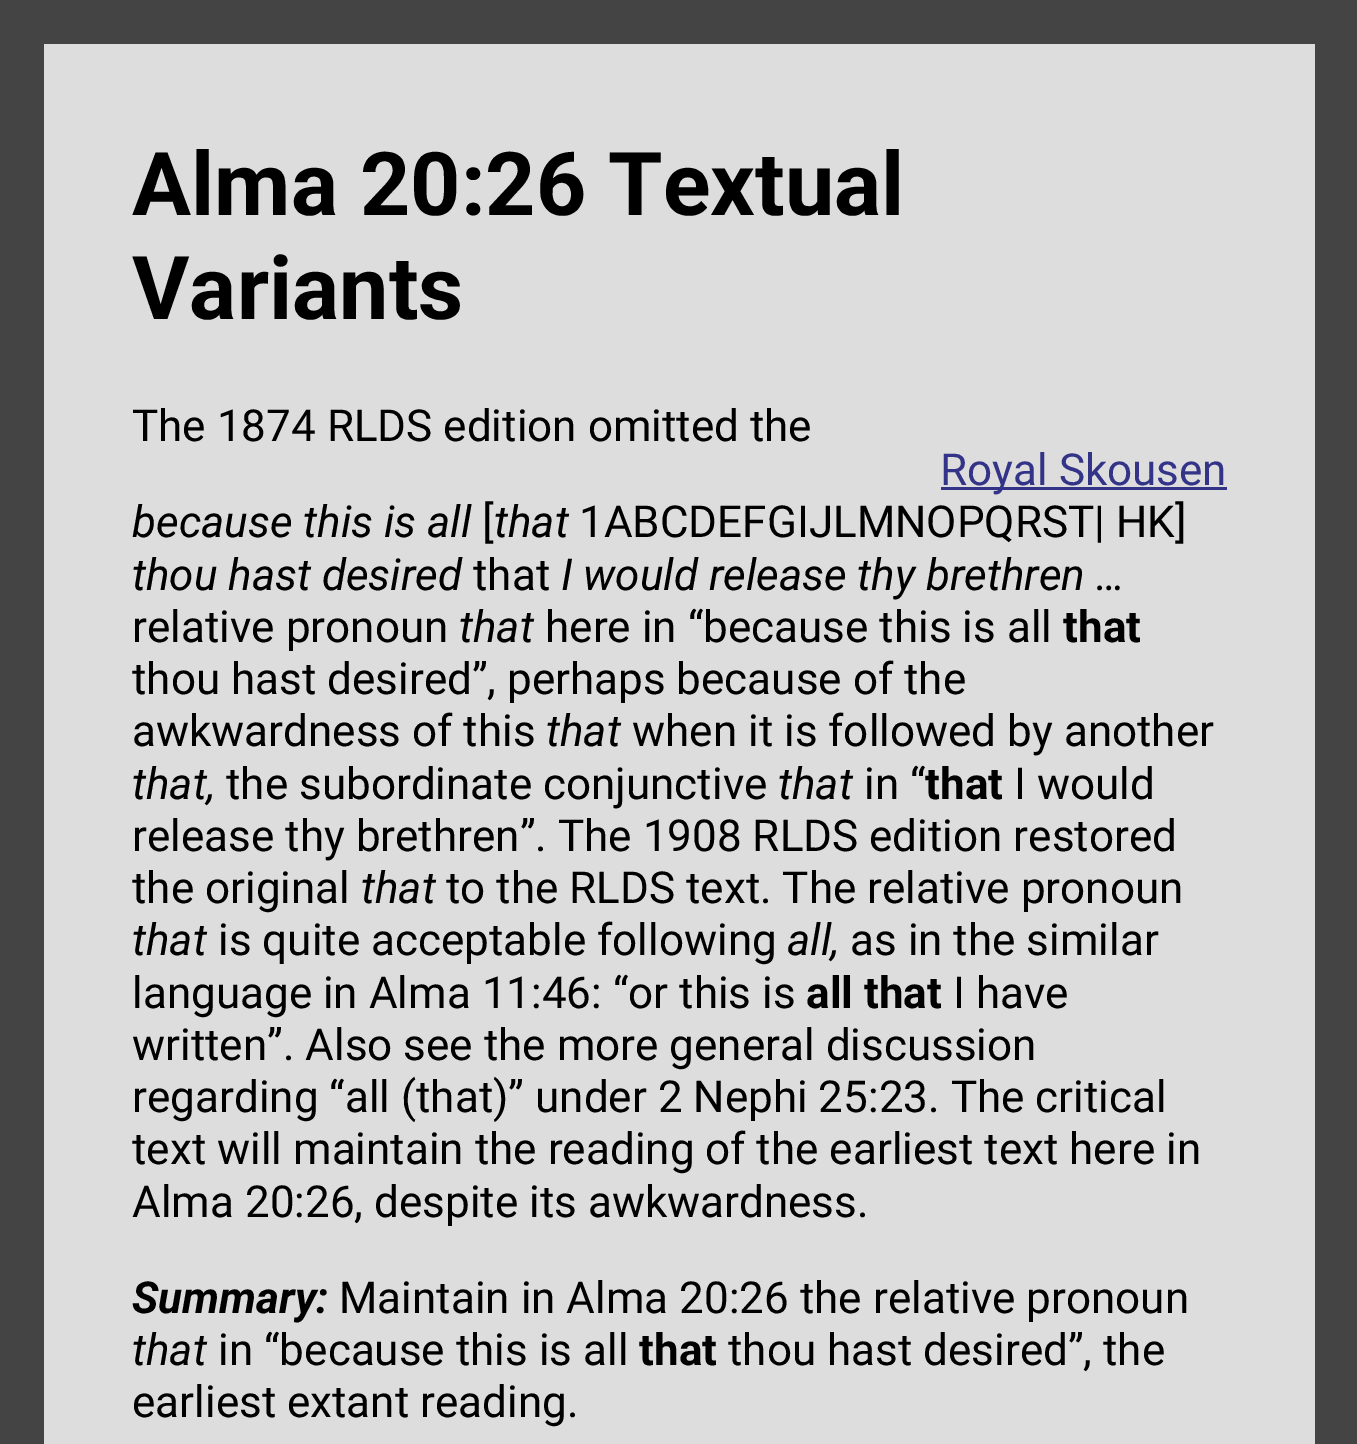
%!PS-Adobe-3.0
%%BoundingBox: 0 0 1357 1444
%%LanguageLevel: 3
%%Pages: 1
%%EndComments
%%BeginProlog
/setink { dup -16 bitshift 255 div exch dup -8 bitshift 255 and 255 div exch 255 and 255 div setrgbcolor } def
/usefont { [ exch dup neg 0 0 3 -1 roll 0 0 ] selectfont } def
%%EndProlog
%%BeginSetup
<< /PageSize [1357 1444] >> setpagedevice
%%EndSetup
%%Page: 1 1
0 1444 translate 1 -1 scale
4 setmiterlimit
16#444444 setink
0 0 1357 1444 rectfill
16#DDDDDD setink
44 44 1271 1400 rectfill
/Roboto-Bold 88 usefont
16#000000 setink
132 215 moveto (Alma 20:26 Textual) show
132 319 moveto (Variants) show
/Roboto-Regular 44 usefont
132 441 moveto (The 1874 RLDS edition omitted the) show
132 642 moveto (relative pronoun) show
/Roboto-Italic 44 usefont
459 642 moveto (that) show
/Roboto-Regular 44 usefont
545 642 moveto (here in “because this is all) show
/Roboto-Bold 44 usefont
1063 642 moveto (that) show
/Roboto-Regular 44 usefont
132 694 moveto (thou hast desired”, perhaps because of the) show
132 746 moveto (awkwardness of this) show
/Roboto-Italic 44 usefont
546 746 moveto (that) show
/Roboto-Regular 44 usefont
632 746 moveto (when it is followed by another) show
/Roboto-Italic 44 usefont
132 799 moveto (that,) show
/Roboto-Regular 44 usefont
226 799 moveto (the subordinate conjunctive) show
/Roboto-Italic 44 usefont
778 799 moveto (that) show
/Roboto-Regular 44 usefont
864 799 moveto (in “) show
/Roboto-Bold 44 usefont
925 799 moveto (that) show
/Roboto-Regular 44 usefont
[
    [(I would) 1014 799]
    [(release thy brethren”. The 1908 RLDS edition restored) 132 851]
    [(the original) 132 903]
] { aload pop moveto show } forall
/Roboto-Italic 44 usefont
361 903 moveto (that) show
/Roboto-Regular 44 usefont
446 903 moveto (to the RLDS text. The relative pronoun) show
/Roboto-Italic 44 usefont
132 955 moveto (that) show
/Roboto-Regular 44 usefont
218 955 moveto (is quite acceptable following) show
/Roboto-Italic 44 usefont
787 955 moveto (all,) show
/Roboto-Regular 44 usefont
850 955 moveto (as in the similar) show
132 1008 moveto (language in Alma 11:46: “or this is) show
/Roboto-Bold 44 usefont
806 1008 moveto (all that) show
/Roboto-Regular 44 usefont
[
    [(I have) 953 1008]
    [(written”. Also see the more general discussion) 132 1060]
    [(regarding “all \(that\)” under 2 Nephi 25:23. The critical) 132 1112]
    [(text will maintain the reading of the earliest text here in) 132 1164]
    [(Alma 20:26, despite its awkwardness.) 132 1217]
] { aload pop moveto show } forall
/Roboto-Italic 44 usefont
132 537 moveto (because this is all) show
/Roboto-Regular 44 usefont
482 537 moveto ([) show
/Roboto-Italic 44 usefont
494 537 moveto (that) show
/Roboto-Regular 44 usefont
579 537 moveto (1ABCDEFGIJLMNOPQRST| HK]) show
/Roboto-Italic 44 usefont
132 590 moveto (thou hast desired) show
/Roboto-Regular 44 usefont
473 590 moveto (that) show
/Roboto-Italic 44 usefont
561 590 moveto (I would release thy brethren …) show
/Roboto-BoldItalic 44 usefont
132 1313 moveto (Summary:) show
/Roboto-Regular 44 usefont
339 1313 moveto (Maintain in Alma 20:26 the relative pronoun) show
/Roboto-Italic 44 usefont
132 1365 moveto (that) show
/Roboto-Regular 44 usefont
218 1365 moveto (in “because this is all) show
/Roboto-Bold 44 usefont
639 1365 moveto (that) show
/Roboto-Regular 44 usefont
728 1365 moveto (thou hast desired”, the) show
132 1417 moveto (earliest extant reading.) show
16#333388 setink
941 487 286 3 rectfill
940 485 moveto (Royal Skousen) show
showpage
%%EOF
